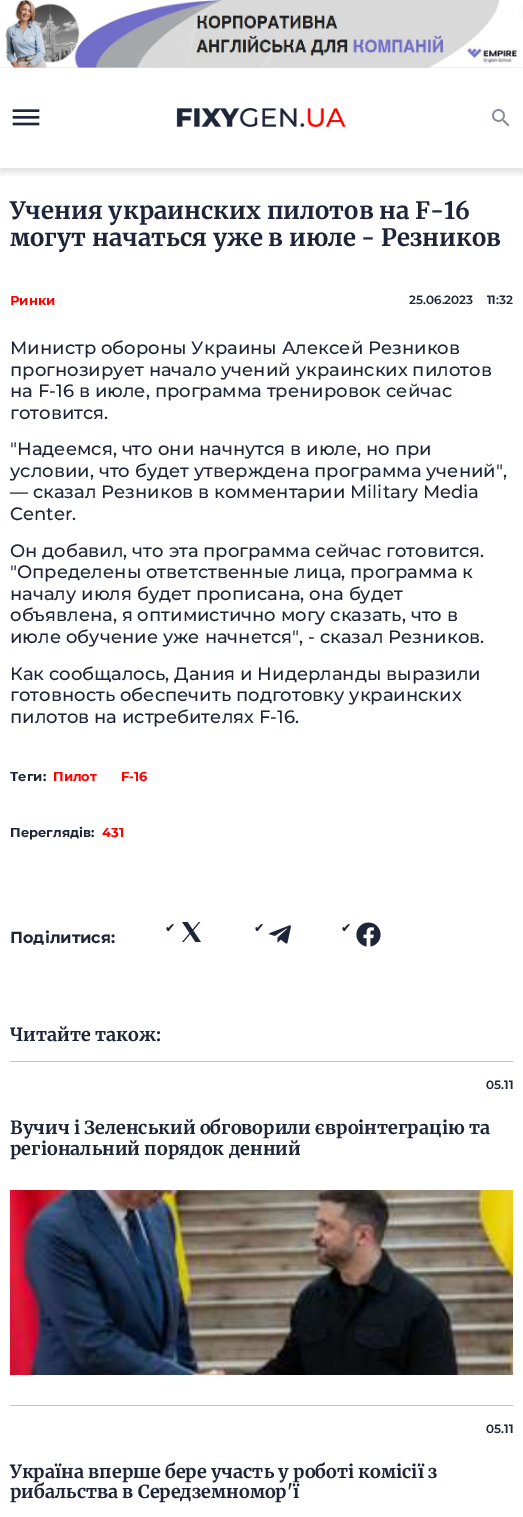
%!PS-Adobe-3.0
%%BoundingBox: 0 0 523 1517
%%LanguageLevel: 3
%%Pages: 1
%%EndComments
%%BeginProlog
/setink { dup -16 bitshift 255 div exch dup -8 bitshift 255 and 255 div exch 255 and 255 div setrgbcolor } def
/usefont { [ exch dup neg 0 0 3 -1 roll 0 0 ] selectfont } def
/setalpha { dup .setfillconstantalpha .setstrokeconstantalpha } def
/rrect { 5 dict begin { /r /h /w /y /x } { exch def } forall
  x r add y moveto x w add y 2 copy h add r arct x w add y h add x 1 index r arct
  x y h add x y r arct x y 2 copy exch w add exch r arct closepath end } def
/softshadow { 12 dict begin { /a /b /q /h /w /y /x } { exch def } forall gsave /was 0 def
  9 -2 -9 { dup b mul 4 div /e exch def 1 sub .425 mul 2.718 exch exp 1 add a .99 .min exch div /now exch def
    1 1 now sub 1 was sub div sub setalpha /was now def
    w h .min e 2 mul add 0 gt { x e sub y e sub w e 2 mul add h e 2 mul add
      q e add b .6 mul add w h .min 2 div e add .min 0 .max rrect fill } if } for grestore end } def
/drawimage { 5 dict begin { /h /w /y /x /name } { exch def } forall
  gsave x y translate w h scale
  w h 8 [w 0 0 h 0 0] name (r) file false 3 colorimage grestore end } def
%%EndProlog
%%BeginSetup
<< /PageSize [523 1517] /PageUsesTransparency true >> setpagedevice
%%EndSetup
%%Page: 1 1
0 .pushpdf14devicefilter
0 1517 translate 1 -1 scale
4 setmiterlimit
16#FFFFFF setink
0 0 523 1517 rectfill
(img1.raw) 0 0 523 68 drawimage
gsave
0 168 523 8 rectclip
16#000000 setink
0 76 523 96 0 4 0.13 softshadow
grestore
(img2.raw) 12 109 28 17 drawimage
(img3.raw) 176 108 170 19 drawimage
(img4.raw) 492 109 18 18 drawimage
/Merriweather-Bold 24 usefont
16#1F2538 setink
10 219 moveto (Учения украинских пилотов на F-16) show
10 246 moveto (могут начаться уже в июле - Резников) show
/Montserrat-Bold 13 usefont
16#FF0000 setink
10 305 moveto (Ринки) show
/Montserrat-SemiBold 12 usefont
16#1F2538 setink
409 304 moveto (25.06.2023    11:32) show
/Montserrat-Medium 18 usefont
[
    [(Министр обороны Украины Алексей Резников) 10 354]
    [(прогнозирует начало учений украинских пилотов) 10 376]
    [(на F-16 в июле, программа тренировок сейчас) 10 397]
    [(готовится.) 10 419]
    [("Надеемся, что они начнутся в июле, но при) 10 455]
    [(условии, что будет утверждена программа учений",) 10 477]
    [(— сказал Резников в комментарии Military Media) 10 498]
    [(Center.) 10 520]
    [(Он добавил, что эта программа сейчас готовится.) 10 557]
    [("Определены ответственные лица, программа к) 10 578]
    [(началу июля будет прописана, она будет) 10 600]
    [(объявлена, я оптимистично могу сказать, что в) 10 621]
    [(июле обучение уже начнется", - сказал Резников.) 10 643]
    [(Как сообщалось, Дания и Нидерланды выразили) 10 680]
    [(готовность обеспечить подготовку украинских) 10 701]
    [(пилотов на истребителях F-16.) 10 723]
] { aload pop moveto show } forall
/Montserrat-Bold 13 usefont
10 781 moveto (Теги:) show
16#FF0000 setink
53 781 moveto (Пилот) show
121 781 moveto (F-16) show
16#1F2538 setink
10 837 moveto (Переглядів:) show
16#FF0000 setink
102 837 moveto (431) show
/DejaVuSans-Bold 12 usefont
16#1F2538 setink
165 932 moveto (✔) show
(img5.raw) 182 922 19 20 drawimage
254 932 moveto (✔) show
(img6.raw) 269 925 22 19 drawimage
341 932 moveto (✔) show
(img7.raw) 356 922 25 25 drawimage
/Montserrat-Bold 16 usefont
10 943 moveto (Поділитися:) show
/Merriweather-Bold 18 usefont
10 1041 moveto (Читайте також:) show
16#C1C3CD setink
10 1061 503 1 rectfill
/Montserrat-SemiBold 12 usefont
16#1F2538 setink
486 1089 moveto (05.11) show
/Merriweather-Bold 18 usefont
10 1134 moveto (Вучич і Зеленський обговорили євроінтеграцію та) show
10 1155 moveto (регіональний порядок денний) show
(img8.raw) 10 1190 503 185 drawimage
16#C1C3CD setink
10 1405 503 1 rectfill
/Montserrat-SemiBold 12 usefont
16#1F2538 setink
486 1433 moveto (05.11) show
/Merriweather-Bold 18 usefont
10 1478 moveto (Україна вперше бере участь у роботі комісії з) show
10 1498 moveto (рибальства в Середземномор'ї) show
.poppdf14devicefilter showpage
%%EOF
